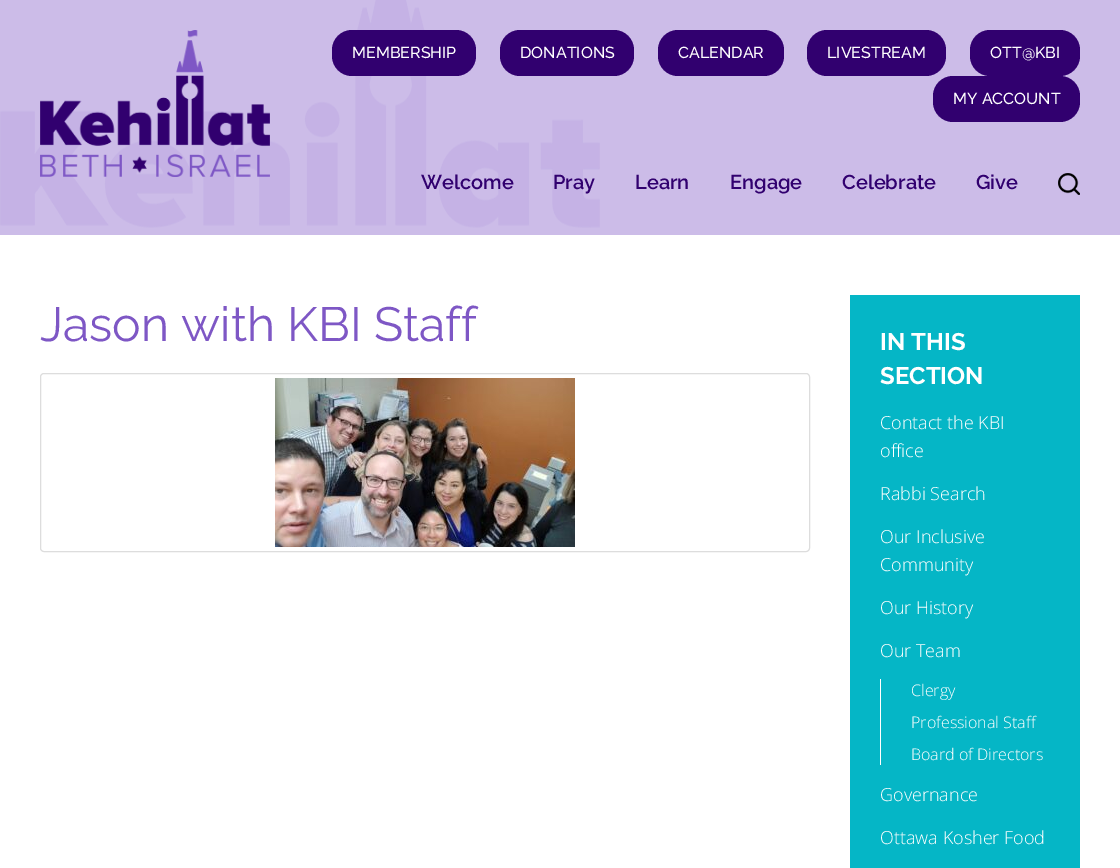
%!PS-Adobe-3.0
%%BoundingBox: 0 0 1120 868
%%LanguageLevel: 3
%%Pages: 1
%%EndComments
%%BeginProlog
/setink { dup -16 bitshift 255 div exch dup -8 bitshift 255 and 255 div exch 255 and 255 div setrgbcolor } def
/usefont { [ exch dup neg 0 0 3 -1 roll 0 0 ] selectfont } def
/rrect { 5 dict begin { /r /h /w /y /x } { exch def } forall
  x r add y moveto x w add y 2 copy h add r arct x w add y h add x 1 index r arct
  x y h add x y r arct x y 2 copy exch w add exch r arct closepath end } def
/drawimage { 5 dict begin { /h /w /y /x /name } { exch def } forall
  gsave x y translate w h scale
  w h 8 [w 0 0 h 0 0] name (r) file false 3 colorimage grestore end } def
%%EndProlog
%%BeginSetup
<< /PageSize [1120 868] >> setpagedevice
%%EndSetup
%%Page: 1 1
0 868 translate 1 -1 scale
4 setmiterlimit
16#CCBCE8 setink
0 0 1120 868 rectfill
(img1.raw) 0 0 600 228 drawimage
(img2.raw) 40 30 230 147 drawimage
16#31006F setink
332 30 144 46 20 rrect fill
/Raleway-Medium 16 usefont
16#FFFFFF setink
352 58 moveto (MEMBERSHIP) show
16#31006F setink
500 30 134 46 20 rrect fill
16#FFFFFF setink
520 58 moveto (DONATIONS) show
16#31006F setink
658 30 126 46 20 rrect fill
16#FFFFFF setink
678 58 moveto (CALENDAR) show
16#31006F setink
807 30 139 46 20 rrect fill
16#FFFFFF setink
827 58 moveto (LIVESTREAM) show
16#31006F setink
970 30 110 46 20 rrect fill
16#FFFFFF setink
990 58 moveto (OTT@KBI) show
16#31006F setink
933 76 147 46 20 rrect fill
16#FFFFFF setink
953 104 moveto (MY ACCOUNT) show
/Raleway-SemiBold 20 usefont
16#31006F setink
[
    [(Welcome) 421 189]
    [(Pray) 553 189]
    [(Learn) 635 189]
    [(Engage) 730 189]
    [(Celebrate) 842 189]
    [(Give) 976 189]
] { aload pop moveto show } forall
(img3.raw) 1058 173 22 22 drawimage
16#FFFFFF setink
0 235 1120 633 rectfill
/Raleway-Regular 48 usefont
16#7E57C5 setink
40 341 moveto (Jason with KBI Staff) show
16#DDDDDD setink
40.5 373.5 769 178 3.5 rrect stroke
(img4.raw) 275 378 300 169 drawimage
16#05B6C6 setink
850 295 230 573 rectfill
/Raleway-Bold 24 usefont
16#FFFFFF setink
880 350 moveto (IN THIS) show
880 384 moveto (SECTION) show
/OpenSans-Light 18 usefont
[
    [(Contact the KBI) 880 429]
    [(office) 880 457]
    [(Rabbi Search) 880 500]
    [(Our Inclusive) 880 543]
    [(Community) 880 571]
    [(Our History) 880 614]
    [(Our Team) 880 657]
] { aload pop moveto show } forall
880 679 1 86 rectfill
/OpenSans-Light 16 usefont
[
    [(Clergy) 911 696]
    [(Professional Staff) 911 728]
    [(Board of Directors) 911 760]
] { aload pop moveto show } forall
/OpenSans-Light 18 usefont
880 801 moveto (Governance) show
880 844 moveto (Ottawa Kosher Food) show
showpage
%%EOF
